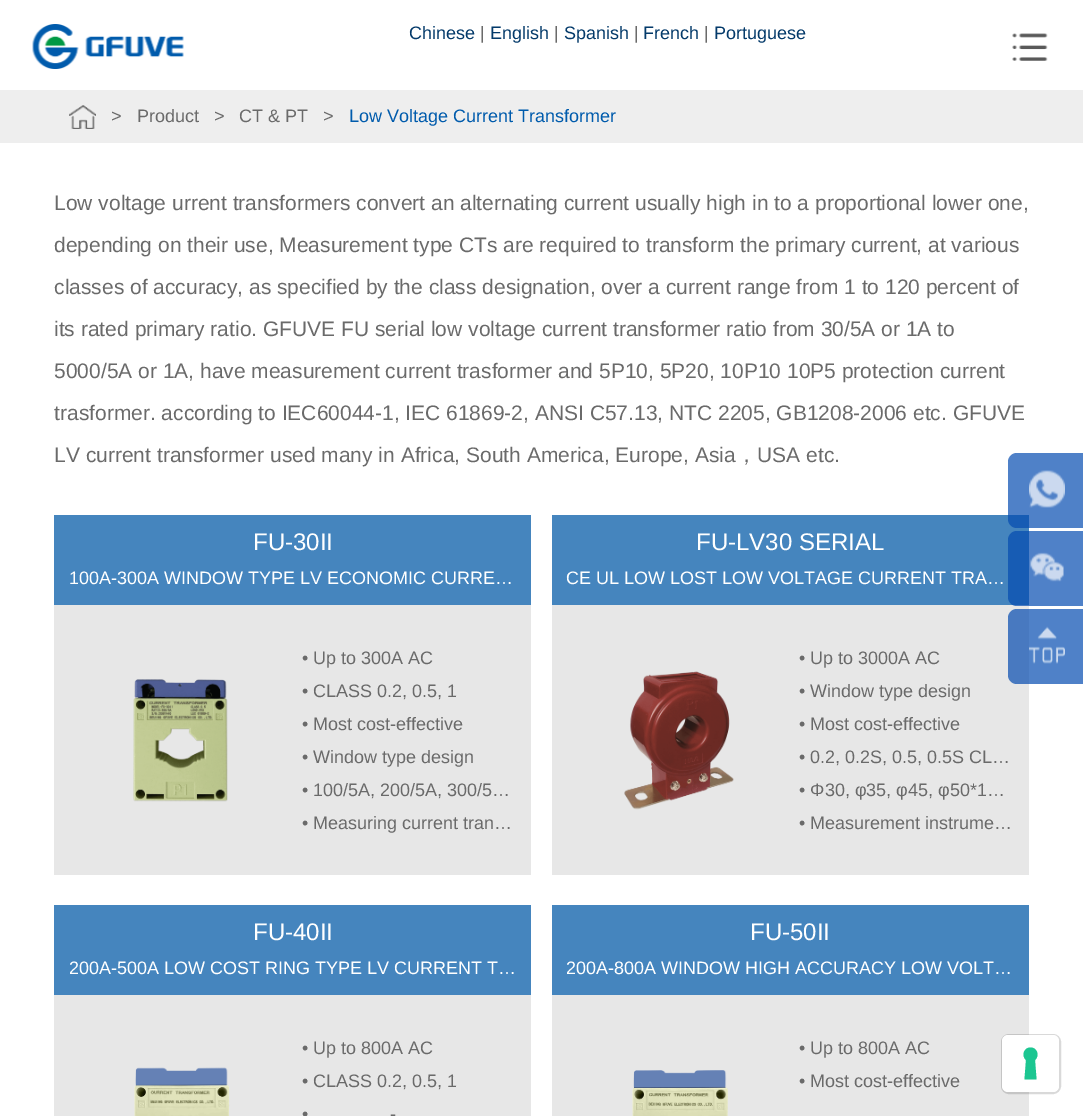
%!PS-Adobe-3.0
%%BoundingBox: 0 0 1083 1116
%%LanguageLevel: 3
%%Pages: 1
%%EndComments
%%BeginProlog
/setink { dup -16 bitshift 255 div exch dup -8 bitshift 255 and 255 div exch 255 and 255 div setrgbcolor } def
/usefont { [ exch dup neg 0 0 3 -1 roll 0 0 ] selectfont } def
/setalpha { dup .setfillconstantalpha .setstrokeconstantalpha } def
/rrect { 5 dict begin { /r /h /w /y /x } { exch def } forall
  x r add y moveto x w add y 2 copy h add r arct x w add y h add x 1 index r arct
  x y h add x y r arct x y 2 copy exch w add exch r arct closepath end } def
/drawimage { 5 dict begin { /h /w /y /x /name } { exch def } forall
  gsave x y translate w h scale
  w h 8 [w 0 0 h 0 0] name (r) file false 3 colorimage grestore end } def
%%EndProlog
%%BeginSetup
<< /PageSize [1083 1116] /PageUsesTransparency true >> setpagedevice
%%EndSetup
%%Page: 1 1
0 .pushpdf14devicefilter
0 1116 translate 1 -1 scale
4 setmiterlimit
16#FFFFFF setink
0 0 1083 1116 rectfill
(img1.raw) 32 24 152 45 drawimage
/LiberationSans-Regular 18 usefont
16#043A6A setink
409 39 moveto (Chinese) show
16#6A6A6A setink
480 39 moveto (|) show
16#043A6A setink
490 39 moveto (English) show
16#6A6A6A setink
554 39 moveto (|) show
16#043A6A setink
564 39 moveto (Spanish) show
16#6A6A6A setink
634 39 moveto (|) show
16#043A6A setink
643 39 moveto (French) show
16#6A6A6A setink
704 39 moveto (|) show
16#043A6A setink
714 39 moveto (Portuguese) show
(img2.raw) 1012 33 36 28 drawimage
16#EEEEEE setink
0 90 1083 53 rectfill
(img3.raw) 69 105 27 24 drawimage
16#6A6A6A setink
[
    [(>) 111 122]
    [(Product) 137 122]
    [(>) 214 122]
    [(CT & PT) 239 122]
    [(>) 323 122]
] { aload pop moveto show } forall
16#005BAC setink
349 122 moveto (Low Voltage Current Transformer) show
/LiberationSans-Regular 21 usefont
16#6A6A6A setink
[
    [(Low voltage urrent transformers convert an alternating current usually high in to a proportional lower one,) 54 210]
    [(depending on their use, Measurement type CTs are required to transform the primary current, at various) 54 252]
    [(classes of accuracy, as specified by the class designation, over a current range from 1 to 120 percent of) 54 294]
    [(its rated primary ratio. GFUVE FU serial low voltage current transformer ratio from 30/5A or 1A to) 54 336]
    [(5000/5A or 1A, have measurement current trasformer and 5P10, 5P20, 10P10 10P5 protection current) 54 378]
    [(trasformer. according to IEC60044-1, IEC 61869-2, ANSI C57.13, NTC 2205, GB1208-2006 etc. GFUVE) 54 420]
    [(LV current transformer used many in Africa, South America, Europe, Asia) 54 462]
] { aload pop moveto show } forall
/WenQuanYiZenHei-Medium 21 usefont
736 462 moveto (，) show
/LiberationSans-Regular 21 usefont
757 462 moveto (USA etc.) show
16#4585BE setink
54 515 477 90 rectfill
/LiberationSans-Regular 24 usefont
16#FFFFFF setink
253 550 moveto (FU-30II) show
/LiberationSans-Regular 18 usefont
69 584 moveto (100A-300A WINDOW TYPE LV ECONOMIC CURRE…) show
16#E7E7E7 setink
54 605 477 270 rectfill
(img4.raw) 133 679 95 123 drawimage
16#6A6A6A setink
[
    [(• Up to 300A AC) 302 664]
    [(• CLASS 0.2, 0.5, 1) 302 697]
    [(• Most cost-effective) 302 730]
    [(• Window type design) 302 763]
    [(• 100/5A, 200/5A, 300/5…) 302 796]
    [(• Measuring current tran…) 302 829]
] { aload pop moveto show } forall
16#4585BE setink
552 515 477 90 rectfill
/LiberationSans-Regular 24 usefont
16#FFFFFF setink
696 550 moveto (FU-LV30 SERIAL) show
/LiberationSans-Regular 18 usefont
566 584 moveto (CE UL LOW LOST LOW VOLTAGE CURRENT TRA…) show
16#E7E7E7 setink
552 605 477 270 rectfill
(img5.raw) 624 671 110 139 drawimage
16#6A6A6A setink
[
    [(• Up to 3000A AC) 799 664]
    [(• Window type design) 799 697]
    [(• Most cost-effective) 799 730]
    [(• 0.2, 0.2S, 0.5, 0.5S CL…) 799 763]
    [(• Φ30, φ35, φ45, φ50*1…) 799 796]
    [(• Measurement instrume…) 799 829]
] { aload pop moveto show } forall
16#4585BE setink
54 905 477 90 rectfill
/LiberationSans-Regular 24 usefont
16#FFFFFF setink
253 940 moveto (FU-40II) show
/LiberationSans-Regular 18 usefont
69 974 moveto (200A-500A LOW COST RING TYPE LV CURRENT T…) show
16#E7E7E7 setink
54 995 477 121 rectfill
(img6.raw) 134 1067 96 49 drawimage
16#6A6A6A setink
[
    [(• Up to 800A AC) 302 1054]
    [(• CLASS 0.2, 0.5, 1) 302 1087]
    [(•) 302 1120]
    [(-) 390 1120]
] { aload pop moveto show } forall
16#4585BE setink
552 905 477 90 rectfill
/LiberationSans-Regular 24 usefont
16#FFFFFF setink
750 940 moveto (FU-50II) show
/LiberationSans-Regular 18 usefont
566 974 moveto (200A-800A WINDOW HIGH ACCURACY LOW VOLT…) show
16#E7E7E7 setink
552 995 477 121 rectfill
16#6A6A6A setink
799 1054 moveto (• Up to 800A AC) show
799 1087 moveto (• Most cost-effective) show
(img7.raw) 632 1070 96 46 drawimage
0.7 setalpha
16#044BB0 setink
1008 453 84 75 9 rrect fill
1 setalpha
(img8.raw) 1029 470 36 38 drawimage
0.7 setalpha
1008 531 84 75 9 rrect fill
1 setalpha
(img9.raw) 1030 552 34 30 drawimage
0.7 setalpha
1008 609 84 75 9 rrect fill
1 setalpha
(img10.raw) 1029 626 36 38 drawimage
0.15 setalpha
16#000000 setink
2 setlinewidth
1002 1035 58 58 7 rrect stroke
1 setalpha
16#FFFFFF setink
1002 1035 57 57 6 rrect fill
16#1CC691 setink
1030.5 1047.5 moveto 1037 1047.5 1040 1055.5 1035 1060 curveto 1036.5 1079.5 lineto 1024.5 1079.5 lineto 1026 1060 lineto 1021 1055.5 1024 1047.5 1030.5 1047.5 curveto closepath eofill
.poppdf14devicefilter showpage
%%EOF
